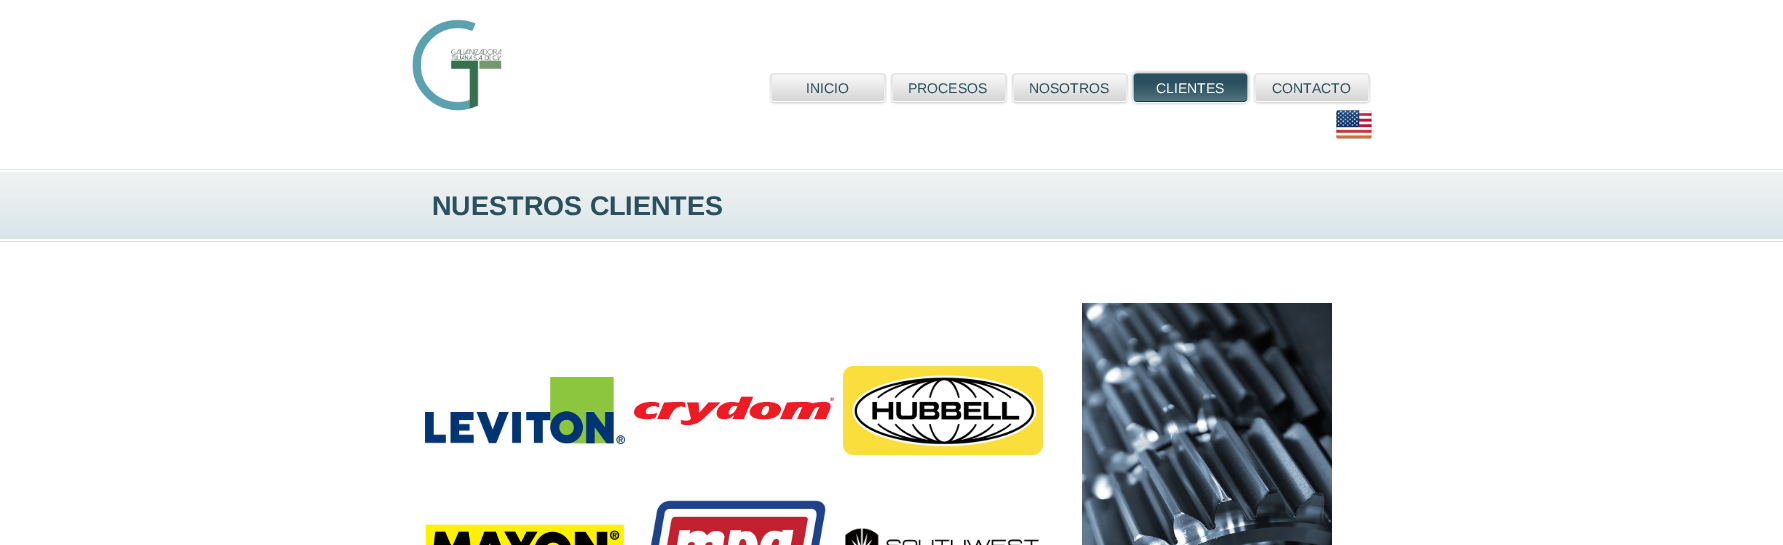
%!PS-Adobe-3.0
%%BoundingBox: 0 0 1783 545
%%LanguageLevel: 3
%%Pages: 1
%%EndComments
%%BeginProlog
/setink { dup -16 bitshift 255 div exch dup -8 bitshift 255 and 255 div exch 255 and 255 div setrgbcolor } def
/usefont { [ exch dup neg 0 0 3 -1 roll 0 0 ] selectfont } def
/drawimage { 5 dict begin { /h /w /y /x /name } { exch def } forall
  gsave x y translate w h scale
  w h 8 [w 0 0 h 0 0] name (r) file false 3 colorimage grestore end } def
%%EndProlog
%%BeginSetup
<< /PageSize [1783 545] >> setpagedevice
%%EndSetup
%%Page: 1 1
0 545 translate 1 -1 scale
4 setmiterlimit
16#FFFFFF setink
0 0 1783 545 rectfill
(img1.raw) 412 19 90 92 drawimage
(img2.raw) 769 73 113 32 drawimage
(img3.raw) 882 73 6 32 drawimage
/LiberationSans-Regular 14 usefont
16#2A4F5E setink
806 93 moveto (INICIO) show
(img2.raw) 890 73 113 32 drawimage
(img3.raw) 1003 73 6 32 drawimage
908 93 moveto (PROCESOS) show
(img2.raw) 1011 73 113 32 drawimage
(img3.raw) 1124 73 6 32 drawimage
1029 93 moveto (NOSOTROS) show
(img4.raw) 1130 70 114 36 drawimage
(img5.raw) 1244 70 7 36 drawimage
16#FFFFFF setink
1156 93 moveto (CLIENTES) show
(img2.raw) 1253 73 113 32 drawimage
(img3.raw) 1366 73 6 32 drawimage
16#2A4F5E setink
1272 93 moveto (CONTACTO) show
(img6.raw) 1336 110 36 30 drawimage
(img7.raw) 0 169 1783 73 drawimage
/LiberationSans-Bold 27 usefont
432 215 moveto (NUESTROS CLIENTES) show
(img8.raw) 425 377 200 67 drawimage
(img9.raw) 634 396 200 30 drawimage
(img10.raw) 843 366 200 89 drawimage
(img11.raw) 425 524 199 21 drawimage
(img12.raw) 650 500 176 45 drawimage
(img13.raw) 845 528 194 17 drawimage
(img14.raw) 1082 303 250 242 drawimage
showpage
%%EOF
